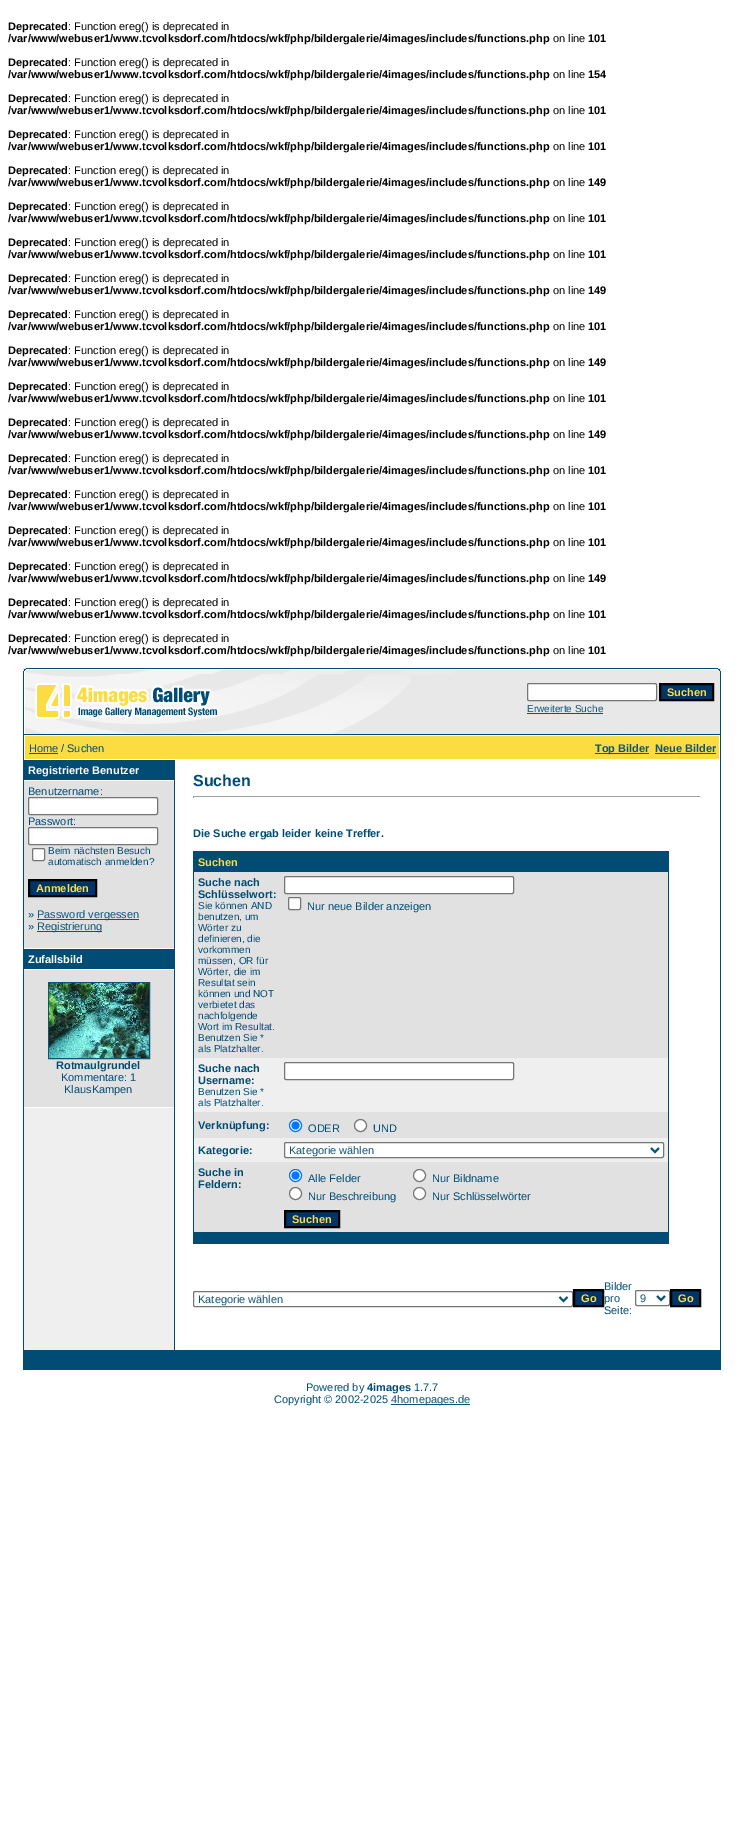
%!PS-Adobe-3.0
%%BoundingBox: 0 0 744 1833
%%LanguageLevel: 3
%%Pages: 1
%%EndComments
%%BeginProlog
/setink { dup -16 bitshift 255 div exch dup -8 bitshift 255 and 255 div exch 255 and 255 div setrgbcolor } def
/usefont { [ exch dup neg 0 0 3 -1 roll 0 0 ] selectfont } def
/disc { newpath 0 360 arc closepath } def
/rrect { 5 dict begin { /r /h /w /y /x } { exch def } forall
  x r add y moveto x w add y 2 copy h add r arct x w add y h add x 1 index r arct
  x y h add x y r arct x y 2 copy exch w add exch r arct closepath end } def
/drawimage { 5 dict begin { /h /w /y /x /name } { exch def } forall
  gsave x y translate w h scale
  w h 8 [w 0 0 h 0 0] name (r) file false 3 colorimage grestore end } def
%%EndProlog
%%BeginSetup
<< /PageSize [744 1833] >> setpagedevice
%%EndSetup
%%Page: 1 1
0 1833 translate 1 -1 scale
4 setmiterlimit
16#FFFFFF setink
0 0 744 1833 rectfill
/LiberationSans-Bold 11 usefont
16#000000 setink
8 30 moveto (Deprecated) show
/LiberationSans-Regular 11 usefont
68 30 moveto (: Function ereg\(\) is deprecated in) show
/LiberationSans-Bold 11 usefont
8 42 moveto (/var/www/webuser1/www.tcvolksdorf.com/htdocs/wkf/php/bildergalerie/4images/includes/functions.php) show
/LiberationSans-Regular 11 usefont
553 42 moveto (on line) show
/LiberationSans-Bold 11 usefont
588 42 moveto (101) show
8 66 moveto (Deprecated) show
/LiberationSans-Regular 11 usefont
68 66 moveto (: Function ereg\(\) is deprecated in) show
/LiberationSans-Bold 11 usefont
8 78 moveto (/var/www/webuser1/www.tcvolksdorf.com/htdocs/wkf/php/bildergalerie/4images/includes/functions.php) show
/LiberationSans-Regular 11 usefont
553 78 moveto (on line) show
/LiberationSans-Bold 11 usefont
588 78 moveto (154) show
8 102 moveto (Deprecated) show
/LiberationSans-Regular 11 usefont
68 102 moveto (: Function ereg\(\) is deprecated in) show
/LiberationSans-Bold 11 usefont
8 114 moveto (/var/www/webuser1/www.tcvolksdorf.com/htdocs/wkf/php/bildergalerie/4images/includes/functions.php) show
/LiberationSans-Regular 11 usefont
553 114 moveto (on line) show
/LiberationSans-Bold 11 usefont
588 114 moveto (101) show
8 138 moveto (Deprecated) show
/LiberationSans-Regular 11 usefont
68 138 moveto (: Function ereg\(\) is deprecated in) show
/LiberationSans-Bold 11 usefont
8 150 moveto (/var/www/webuser1/www.tcvolksdorf.com/htdocs/wkf/php/bildergalerie/4images/includes/functions.php) show
/LiberationSans-Regular 11 usefont
553 150 moveto (on line) show
/LiberationSans-Bold 11 usefont
588 150 moveto (101) show
8 174 moveto (Deprecated) show
/LiberationSans-Regular 11 usefont
68 174 moveto (: Function ereg\(\) is deprecated in) show
/LiberationSans-Bold 11 usefont
8 186 moveto (/var/www/webuser1/www.tcvolksdorf.com/htdocs/wkf/php/bildergalerie/4images/includes/functions.php) show
/LiberationSans-Regular 11 usefont
553 186 moveto (on line) show
/LiberationSans-Bold 11 usefont
588 186 moveto (149) show
8 210 moveto (Deprecated) show
/LiberationSans-Regular 11 usefont
68 210 moveto (: Function ereg\(\) is deprecated in) show
/LiberationSans-Bold 11 usefont
8 222 moveto (/var/www/webuser1/www.tcvolksdorf.com/htdocs/wkf/php/bildergalerie/4images/includes/functions.php) show
/LiberationSans-Regular 11 usefont
553 222 moveto (on line) show
/LiberationSans-Bold 11 usefont
588 222 moveto (101) show
8 246 moveto (Deprecated) show
/LiberationSans-Regular 11 usefont
68 246 moveto (: Function ereg\(\) is deprecated in) show
/LiberationSans-Bold 11 usefont
8 258 moveto (/var/www/webuser1/www.tcvolksdorf.com/htdocs/wkf/php/bildergalerie/4images/includes/functions.php) show
/LiberationSans-Regular 11 usefont
553 258 moveto (on line) show
/LiberationSans-Bold 11 usefont
588 258 moveto (101) show
8 282 moveto (Deprecated) show
/LiberationSans-Regular 11 usefont
68 282 moveto (: Function ereg\(\) is deprecated in) show
/LiberationSans-Bold 11 usefont
8 294 moveto (/var/www/webuser1/www.tcvolksdorf.com/htdocs/wkf/php/bildergalerie/4images/includes/functions.php) show
/LiberationSans-Regular 11 usefont
553 294 moveto (on line) show
/LiberationSans-Bold 11 usefont
588 294 moveto (149) show
8 318 moveto (Deprecated) show
/LiberationSans-Regular 11 usefont
68 318 moveto (: Function ereg\(\) is deprecated in) show
/LiberationSans-Bold 11 usefont
8 330 moveto (/var/www/webuser1/www.tcvolksdorf.com/htdocs/wkf/php/bildergalerie/4images/includes/functions.php) show
/LiberationSans-Regular 11 usefont
553 330 moveto (on line) show
/LiberationSans-Bold 11 usefont
588 330 moveto (101) show
8 354 moveto (Deprecated) show
/LiberationSans-Regular 11 usefont
68 354 moveto (: Function ereg\(\) is deprecated in) show
/LiberationSans-Bold 11 usefont
8 366 moveto (/var/www/webuser1/www.tcvolksdorf.com/htdocs/wkf/php/bildergalerie/4images/includes/functions.php) show
/LiberationSans-Regular 11 usefont
553 366 moveto (on line) show
/LiberationSans-Bold 11 usefont
588 366 moveto (149) show
8 390 moveto (Deprecated) show
/LiberationSans-Regular 11 usefont
68 390 moveto (: Function ereg\(\) is deprecated in) show
/LiberationSans-Bold 11 usefont
8 402 moveto (/var/www/webuser1/www.tcvolksdorf.com/htdocs/wkf/php/bildergalerie/4images/includes/functions.php) show
/LiberationSans-Regular 11 usefont
553 402 moveto (on line) show
/LiberationSans-Bold 11 usefont
588 402 moveto (101) show
8 426 moveto (Deprecated) show
/LiberationSans-Regular 11 usefont
68 426 moveto (: Function ereg\(\) is deprecated in) show
/LiberationSans-Bold 11 usefont
8 438 moveto (/var/www/webuser1/www.tcvolksdorf.com/htdocs/wkf/php/bildergalerie/4images/includes/functions.php) show
/LiberationSans-Regular 11 usefont
553 438 moveto (on line) show
/LiberationSans-Bold 11 usefont
588 438 moveto (149) show
8 462 moveto (Deprecated) show
/LiberationSans-Regular 11 usefont
68 462 moveto (: Function ereg\(\) is deprecated in) show
/LiberationSans-Bold 11 usefont
8 474 moveto (/var/www/webuser1/www.tcvolksdorf.com/htdocs/wkf/php/bildergalerie/4images/includes/functions.php) show
/LiberationSans-Regular 11 usefont
553 474 moveto (on line) show
/LiberationSans-Bold 11 usefont
588 474 moveto (101) show
8 498 moveto (Deprecated) show
/LiberationSans-Regular 11 usefont
68 498 moveto (: Function ereg\(\) is deprecated in) show
/LiberationSans-Bold 11 usefont
8 510 moveto (/var/www/webuser1/www.tcvolksdorf.com/htdocs/wkf/php/bildergalerie/4images/includes/functions.php) show
/LiberationSans-Regular 11 usefont
553 510 moveto (on line) show
/LiberationSans-Bold 11 usefont
588 510 moveto (101) show
8 534 moveto (Deprecated) show
/LiberationSans-Regular 11 usefont
68 534 moveto (: Function ereg\(\) is deprecated in) show
/LiberationSans-Bold 11 usefont
8 546 moveto (/var/www/webuser1/www.tcvolksdorf.com/htdocs/wkf/php/bildergalerie/4images/includes/functions.php) show
/LiberationSans-Regular 11 usefont
553 546 moveto (on line) show
/LiberationSans-Bold 11 usefont
588 546 moveto (101) show
8 570 moveto (Deprecated) show
/LiberationSans-Regular 11 usefont
68 570 moveto (: Function ereg\(\) is deprecated in) show
/LiberationSans-Bold 11 usefont
8 582 moveto (/var/www/webuser1/www.tcvolksdorf.com/htdocs/wkf/php/bildergalerie/4images/includes/functions.php) show
/LiberationSans-Regular 11 usefont
553 582 moveto (on line) show
/LiberationSans-Bold 11 usefont
588 582 moveto (149) show
8 606 moveto (Deprecated) show
/LiberationSans-Regular 11 usefont
68 606 moveto (: Function ereg\(\) is deprecated in) show
/LiberationSans-Bold 11 usefont
8 618 moveto (/var/www/webuser1/www.tcvolksdorf.com/htdocs/wkf/php/bildergalerie/4images/includes/functions.php) show
/LiberationSans-Regular 11 usefont
553 618 moveto (on line) show
/LiberationSans-Bold 11 usefont
588 618 moveto (101) show
8 642 moveto (Deprecated) show
/LiberationSans-Regular 11 usefont
68 642 moveto (: Function ereg\(\) is deprecated in) show
/LiberationSans-Bold 11 usefont
8 654 moveto (/var/www/webuser1/www.tcvolksdorf.com/htdocs/wkf/php/bildergalerie/4images/includes/functions.php) show
/LiberationSans-Regular 11 usefont
553 654 moveto (on line) show
/LiberationSans-Bold 11 usefont
588 654 moveto (101) show
16#E8E8E8 setink
23 668 698 66 rectfill
(img1.raw) 23 668 6 6 drawimage
(img2.raw) 29 668 686 6 drawimage
(img3.raw) 715 668 6 6 drawimage
(img4.raw) 23 674 6 60 drawimage
(img5.raw) 29 674 381 60 drawimage
16#FFFFFF setink
527.5 683.5 129 17 1.5 rrect gsave fill grestore
16#767676 setink
stroke
16#003366 setink
660 684 moveto 713 684 lineto 713 700 lineto 660 700 lineto closepath gsave fill grestore
16#000000 setink
2 setlinewidth
stroke
16#FCDC43 setink
667 696 moveto (Suchen) show
/LiberationSans-Regular 10 usefont
16#0F5475 setink
527 712 moveto (Erweiterte Suche) show
[
    [527 713 76 1 16#0F5475]
    [720 674 1 60 16#004C75]
    [23 734 698 636 16#004C75]
    [24 735 696 615 16#FFFFFF]
    [25 736 694 23 16#FCDC43]
] { aload pop setink rectfill } forall
/LiberationSans-Regular 11 usefont
16#0F5475 setink
29 752 moveto (Home) show
29 753 29 1 rectfill
16#004C75 setink
61 752 moveto (/ Suchen) show
16#0F5475 setink
595 753 54 1 rectfill
/LiberationSans-Bold 11 usefont
595 752 moveto (Top Bilder) show
655 752 moveto (Neue Bilder) show
[
    [655 753 61 1 16#0F5475]
    [24 1108 150 242 16#EFEFEF]
    [24 760 150 20 16#004C75]
] { aload pop setink rectfill } forall
16#FFFFFF setink
28 774 moveto (Registrierte Benutzer) show
16#E1E1E1 setink
24 781 150 167 rectfill
/LiberationSans-Regular 11 usefont
16#004C75 setink
28 795 moveto (Benutzername:) show
16#FFFFFF setink
28.5 797.5 129 17 1.5 rrect gsave fill grestore
16#767676 setink
1 setlinewidth
stroke
16#004C75 setink
28 825 moveto (Passwort:) show
16#FFFFFF setink
28.5 827.5 129 17 1.5 rrect gsave fill grestore
16#767676 setink
stroke
16#FFFFFF setink
32.5 848.5 12 12 1.5 rrect gsave fill grestore
16#767676 setink
stroke
/LiberationSans-Regular 10 usefont
16#004C75 setink
48 854 moveto (Beim nächsten Besuch) show
48 865 moveto (automatisch anmelden?) show
16#003366 setink
29 880 moveto 96 880 lineto 96 896 lineto 29 896 lineto closepath gsave fill grestore
16#000000 setink
2 setlinewidth
stroke
/LiberationSans-Bold 11 usefont
16#FCDC43 setink
36 892 moveto (Anmelden) show
/LiberationSans-Regular 11 usefont
16#004C75 setink
28 918 moveto (») show
16#0F5475 setink
37 919 102 1 rectfill
37 918 moveto (Password vergessen) show
16#004C75 setink
28 930 moveto (») show
16#0F5475 setink
37 931 65 1 rectfill
37 930 moveto (Registrierung) show
16#004C75 setink
24 949 150 20 rectfill
/LiberationSans-Bold 11 usefont
16#FFFFFF setink
28 963 moveto (Zufallsbild) show
16#E1E1E1 setink
24 970 150 137 rectfill
16#0F5475 setink
1 setlinewidth
48.5 982.5 101 76 rectstroke
(img6.raw) 49 983 100 75 drawimage
16#004C75 setink
56 1069 moveto (Rotmaulgrundel) show
/LiberationSans-Regular 11 usefont
61 1081 moveto (Kommentare: 1) show
64 1093 moveto (KlausKampen) show
174 760 1 590 rectfill
/LiberationSans-Bold 16 usefont
193 786 moveto (Suchen) show
[
    [193 796 508 1 16#9F9F9F]
    [700 796 1 2 16#EEEEEE]
    [193 796 1 2 16#9F9F9F]
] { aload pop setink rectfill } forall
/LiberationSans-Bold 11 usefont
16#004C75 setink
193 837 moveto (Die Suche ergab leider keine Treffer.) show
193 851 476 393 rectfill
16#FCDC43 setink
198 866 moveto (Suchen) show
16#E1E1E1 setink
194 872 474 186 rectfill
16#004C75 setink
198 886 moveto (Suche nach) show
198 898 moveto (Schlüsselwort:) show
/LiberationSans-Regular 10 usefont
[
    [(Sie können AND) 198 909]
    [(benutzen, um) 198 920]
    [(Wörter zu) 198 931]
    [(definieren, die) 198 942]
    [(vorkommen) 198 953]
    [(müssen, OR für) 198 964]
    [(Wörter, die im) 198 975]
    [(Resultat sein) 198 986]
    [(können und NOT) 198 997]
    [(verbietet das) 198 1008]
    [(nachfolgende) 198 1019]
    [(Wort im Resultat.) 198 1030]
    [(Benutzen Sie *) 198 1041]
    [(als Platzhalter.) 198 1052]
] { aload pop moveto show } forall
16#FFFFFF setink
284.5 876.5 229 17 1.5 rrect gsave fill grestore
16#767676 setink
stroke
16#FFFFFF setink
288.5 897.5 12 12 1.5 rrect gsave fill grestore
16#767676 setink
stroke
/LiberationSans-Regular 11 usefont
16#004C75 setink
307 910 moveto (Nur neue Bilder anzeigen) show
16#EFEFEF setink
194 1058 474 54 rectfill
/LiberationSans-Bold 11 usefont
16#004C75 setink
198 1072 moveto (Suche nach) show
198 1084 moveto (Username:) show
/LiberationSans-Regular 10 usefont
198 1095 moveto (Benutzen Sie *) show
198 1106 moveto (als Platzhalter.) show
16#FFFFFF setink
284.5 1062.5 229 17 1.5 rrect gsave fill grestore
16#767676 setink
stroke
16#E1E1E1 setink
194 1112 474 26 rectfill
/LiberationSans-Bold 11 usefont
16#004C75 setink
198 1129 moveto (Verknüpfung:) show
16#FFFFFF setink
295.5 1125.5 6 disc gsave fill grestore
16#0075FF setink
stroke
295.5 1125.5 4 disc fill
/LiberationSans-Regular 11 usefont
16#004C75 setink
308 1132 moveto (ODER) show
16#FFFFFF setink
360.5 1125.5 6 disc gsave fill grestore
16#767676 setink
stroke
16#004C75 setink
373 1132 moveto (UND) show
16#EFEFEF setink
194 1138 474 24 rectfill
/LiberationSans-Bold 11 usefont
16#004C75 setink
198 1154 moveto (Kategorie:) show
16#FFFFFF setink
284.5 1142.5 379 15 1.5 rrect gsave fill grestore
16#767676 setink
stroke
16#0F5475 setink
2 setlinewidth
651 1148 moveto 655 1152 lineto 659 1148 lineto stroke
/LiberationSans-Regular 11 usefont
289 1154 moveto (Kategorie wählen) show
16#E1E1E1 setink
194 1162 474 44 rectfill
/LiberationSans-Bold 11 usefont
16#004C75 setink
198 1176 moveto (Suche in) show
198 1188 moveto (Feldern:) show
16#FFFFFF setink
295.5 1175.5 6 disc gsave fill grestore
16#0075FF setink
1 setlinewidth
stroke
295.5 1175.5 4 disc fill
/LiberationSans-Regular 11 usefont
16#004C75 setink
308 1182 moveto (Alle Felder) show
16#FFFFFF setink
419.5 1175.5 6 disc gsave fill grestore
16#767676 setink
stroke
16#004C75 setink
432 1182 moveto (Nur Bildname) show
16#FFFFFF setink
295.5 1193.5 6 disc gsave fill grestore
16#767676 setink
stroke
16#004C75 setink
308 1200 moveto (Nur Beschreibung) show
16#FFFFFF setink
419.5 1193.5 6 disc gsave fill grestore
16#767676 setink
stroke
16#004C75 setink
432 1200 moveto (Nur Schlüsselwörter) show
16#E1E1E1 setink
194 1206 474 26 rectfill
16#003366 setink
285 1211 moveto 339 1211 lineto 339 1227 lineto 285 1227 lineto closepath gsave fill grestore
16#000000 setink
2 setlinewidth
stroke
/LiberationSans-Bold 11 usefont
16#FCDC43 setink
292 1223 moveto (Suchen) show
16#767676 setink
1 setlinewidth
193.5 1291.5 379 15 1.5 rrect stroke
16#0F5475 setink
2 setlinewidth
559.5 1297 moveto 563.5 1301 lineto 567.5 1297 lineto stroke
/LiberationSans-Regular 11 usefont
198 1303 moveto (Kategorie wählen) show
16#003366 setink
574 1290 moveto 603 1290 lineto 603 1306 lineto 574 1306 lineto closepath gsave fill grestore
16#000000 setink
stroke
/LiberationSans-Bold 11 usefont
16#FCDC43 setink
581 1302 moveto (Go) show
/LiberationSans-Regular 11 usefont
16#004C75 setink
[
    [(Bilder) 604 1290]
    [(pro) 604 1302]
    [(Seite:) 604 1314]
] { aload pop moveto show } forall
16#767676 setink
1 setlinewidth
635.5 1290.5 34 15 1.5 rrect stroke
16#0F5475 setink
2 setlinewidth
657 1296 moveto 661 1300 lineto 665 1296 lineto stroke
640 1302 moveto (9) show
16#003366 setink
671 1290 moveto 700 1290 lineto 700 1306 lineto 671 1306 lineto closepath gsave fill grestore
16#000000 setink
stroke
/LiberationSans-Bold 11 usefont
16#FCDC43 setink
678 1302 moveto (Go) show
/LiberationSans-Regular 11 usefont
16#004C75 setink
306 1391 moveto (Powered by) show
/LiberationSans-Bold 11 usefont
367 1391 moveto (4images) show
/LiberationSans-Regular 11 usefont
414 1391 moveto (1.7.7) show
274 1403 moveto (Copyright © 2002-2025) show
16#0F5475 setink
391 1404 79 1 rectfill
391 1403 moveto (4homepages.de) show
showpage
%%EOF
